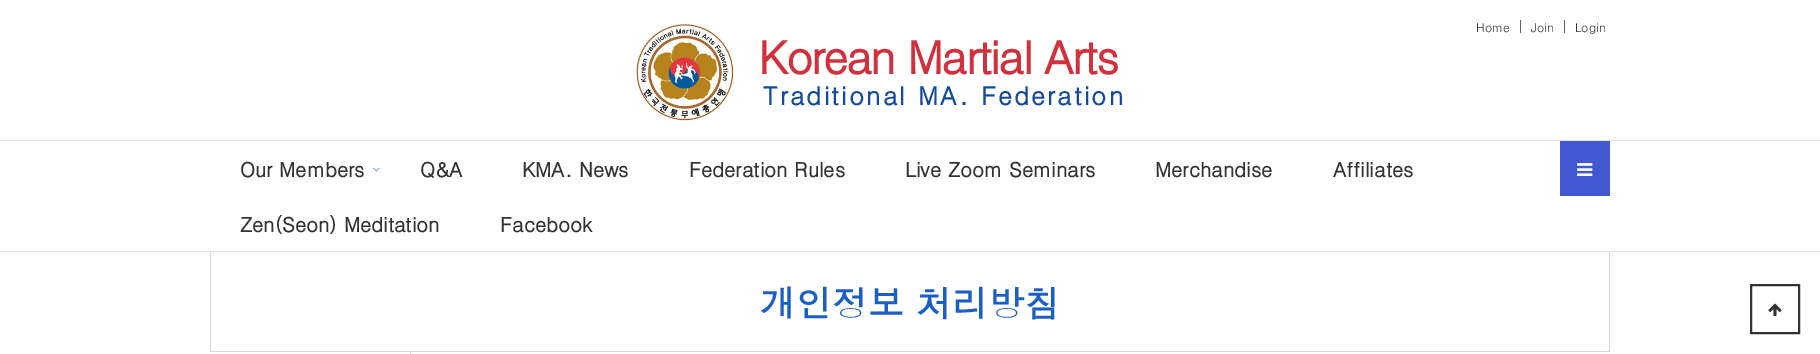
%!PS-Adobe-3.0
%%BoundingBox: 0 0 1820 354
%%LanguageLevel: 3
%%Pages: 1
%%EndComments
%%BeginProlog
/setink { dup -16 bitshift 255 div exch dup -8 bitshift 255 and 255 div exch 255 and 255 div setrgbcolor } def
/usefont { [ exch dup neg 0 0 3 -1 roll 0 0 ] selectfont } def
/drawimage { 5 dict begin { /h /w /y /x /name } { exch def } forall
  gsave x y translate w h scale
  w h 8 [w 0 0 h 0 0] name (r) file false 3 colorimage grestore end } def
%%EndProlog
%%BeginSetup
<< /PageSize [1820 354] >> setpagedevice
%%EndSetup
%%Page: 1 1
0 354 translate 1 -1 scale
4 setmiterlimit
16#FFFFFF setink
0 0 1820 354 rectfill
/Dotum-Regular 12 usefont
16#333333 setink
1476 32 moveto (Home) show
16#616161 setink
1520 20 1 13 rectfill
16#333333 setink
1531 32 moveto (Join) show
16#616161 setink
1564 20 1 13 rectfill
16#333333 setink
1575 32 moveto (Login) show
(img1.raw) 635 22 99 99 drawimage
/Dotum-Bold 45 usefont
16#D1313D setink
758 74 moveto -2 0 (Korean Martial Arts) ashow
/Dotum-Bold 25 usefont
16#134A9D setink
763 105 moveto 2.1 0 (Traditional MA. Federation) ashow
16#E0E2E5 setink
0 140 1820 1 rectfill
0 251 1820 1 rectfill
/Dotum-Bold 20 usefont
16#333333 setink
240 177 moveto (Our Members) show
(img2.raw) 373 168 7 4 drawimage
[
    [(Q&A) 420 177]
    [(KMA. News) 522 177]
    [(Federation Rules) 689 177]
    [(Live Zoom Seminars) 905 177]
    [(Merchandise) 1155 177]
    [(Affiliates) 1333 177]
] { aload pop moveto show } forall
16#4158D1 setink
1560 141 50 55 rectfill
(img3.raw) 1577 163 16 13 drawimage
16#333333 setink
240 232 moveto (Zen\(Seon\) Meditation) show
500 232 moveto (Facebook) show
[
    [1609 252 1 100 16#D8D8D8]
    [210 351 1400 1 16#D8D8D8]
    [210 252 1 100 16#D8D8D8]
] { aload pop setink rectfill } forall
/Dotum-Bold 36 usefont
16#1C5FC4 setink
760 317 moveto (개인정보 처리방침) show
16#D8D8D8 setink
410 352 1 2 rectfill
16#333333 setink
2 setlinewidth
1751 285 48 48 rectstroke
(img4.raw) 1768 303 14 14 drawimage
showpage
%%EOF
